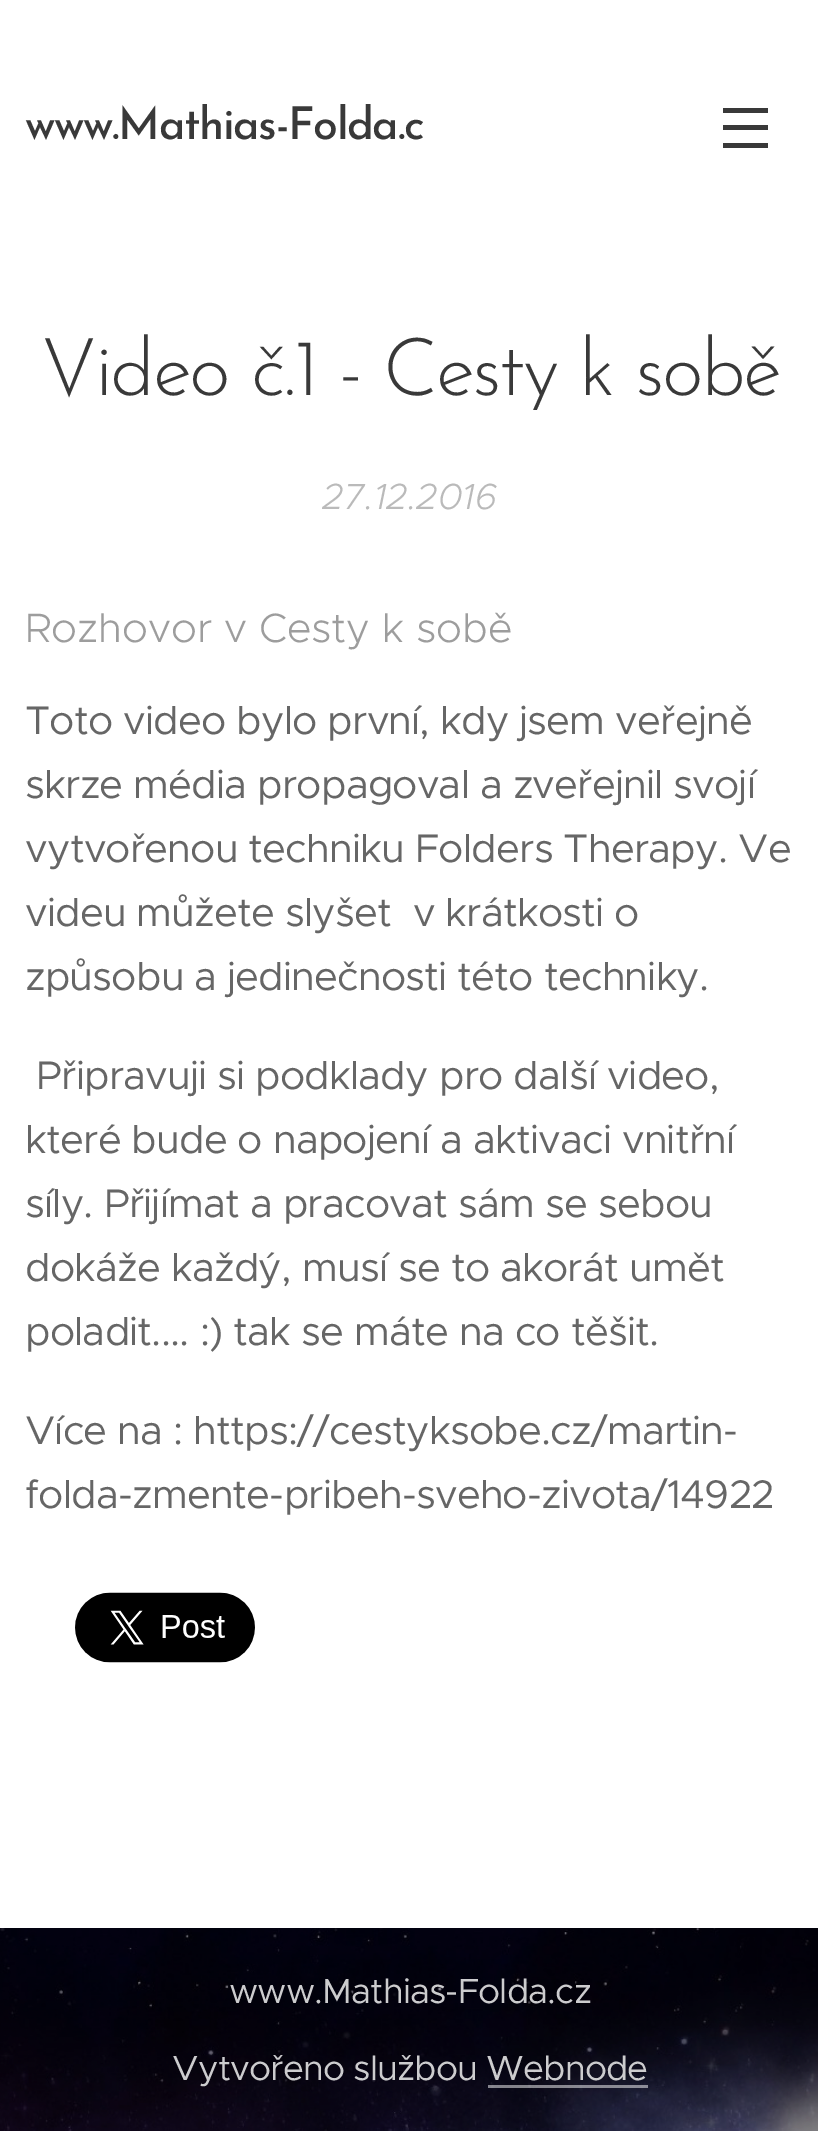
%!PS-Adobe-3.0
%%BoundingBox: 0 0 818 2131
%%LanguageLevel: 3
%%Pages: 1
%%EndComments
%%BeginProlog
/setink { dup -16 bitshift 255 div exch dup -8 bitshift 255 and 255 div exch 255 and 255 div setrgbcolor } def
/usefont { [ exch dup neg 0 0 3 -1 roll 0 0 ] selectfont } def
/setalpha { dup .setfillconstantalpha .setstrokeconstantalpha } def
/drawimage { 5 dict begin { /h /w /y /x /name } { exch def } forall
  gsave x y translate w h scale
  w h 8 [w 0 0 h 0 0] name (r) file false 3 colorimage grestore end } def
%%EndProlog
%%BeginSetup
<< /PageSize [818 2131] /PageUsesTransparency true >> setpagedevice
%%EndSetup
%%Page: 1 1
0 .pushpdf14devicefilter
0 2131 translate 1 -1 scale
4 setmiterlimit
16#FFFFFF setink
0 0 818 2131 rectfill
/JosefinSans-Medium 45 usefont
16#393939 setink
25 139 moveto -1.4 0 (www.Mathias-Folda.c) ashow
[
    [723 125 45 5 16#393939]
    [723 108 45 5 16#393939]
    [723 143 45 5 16#393939]
] { aload pop setink rectfill } forall
/JosefinSans-Light 80 usefont
41 395 moveto -2.4 0 (Video č.1 - Cesty k sobě) ashow
/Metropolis-LightItalic 36.5 usefont
16#BABABA setink
322 509 moveto (27.12.2016) show
/Metropolis-Light 41 usefont
16#9D9D9D setink
25 642 moveto (Rozhovor v Cesty k sobě) show
/Metropolis-Regular 40 usefont
16#666666 setink
25 734 moveto -0.8 0 (Toto video bylo první, kdy jsem veřejně) ashow
25 798 moveto -0.8 0 (skrze média propagoval a zveřejnil svojí) ashow
25 862 moveto -0.8 0 (vytvořenou techniku Folders Therapy. Ve) ashow
25 926 moveto -0.8 0 (videu můžete slyšet  v krátkosti o) ashow
25 990 moveto -0.8 0 (způsobu a jedinečnosti této techniky.) ashow
36 1089 moveto -0.8 0 (Připravuji si podklady pro další video,) ashow
25 1153 moveto -0.8 0 (které bude o napojení a aktivaci vnitřní) ashow
25 1217 moveto -0.8 0 (síly. Přijímat a pracovat sám se sebou) ashow
25 1281 moveto -0.8 0 (dokáže každý, musí se to akorát umět) ashow
25 1345 moveto -0.8 0 (poladit.... :\) tak se máte na co těšit.) ashow
25 1444 moveto -0.8 0 (Více na : https://cestyksobe.cz/martin-) ashow
25 1508 moveto -0.8 0 (folda-zmente-pribeh-sveho-zivota/14922) ashow
(img1.raw) 75 1592 180 71 drawimage
(img2.raw) 0 1928 818 203 drawimage
/Metropolis-Regular 35 usefont
16#CCCCCE setink
229 2003 moveto -0.8 0 (www.Mathias-Folda.cz) ashow
172 2080 moveto -0.8 0 (Vytvořeno službou) ashow
486 2080 moveto -0.8 0 (Webnode) ashow
0.5 setalpha
16#FFFFFF setink
488 2085 160 3 rectfill
.poppdf14devicefilter showpage
%%EOF
